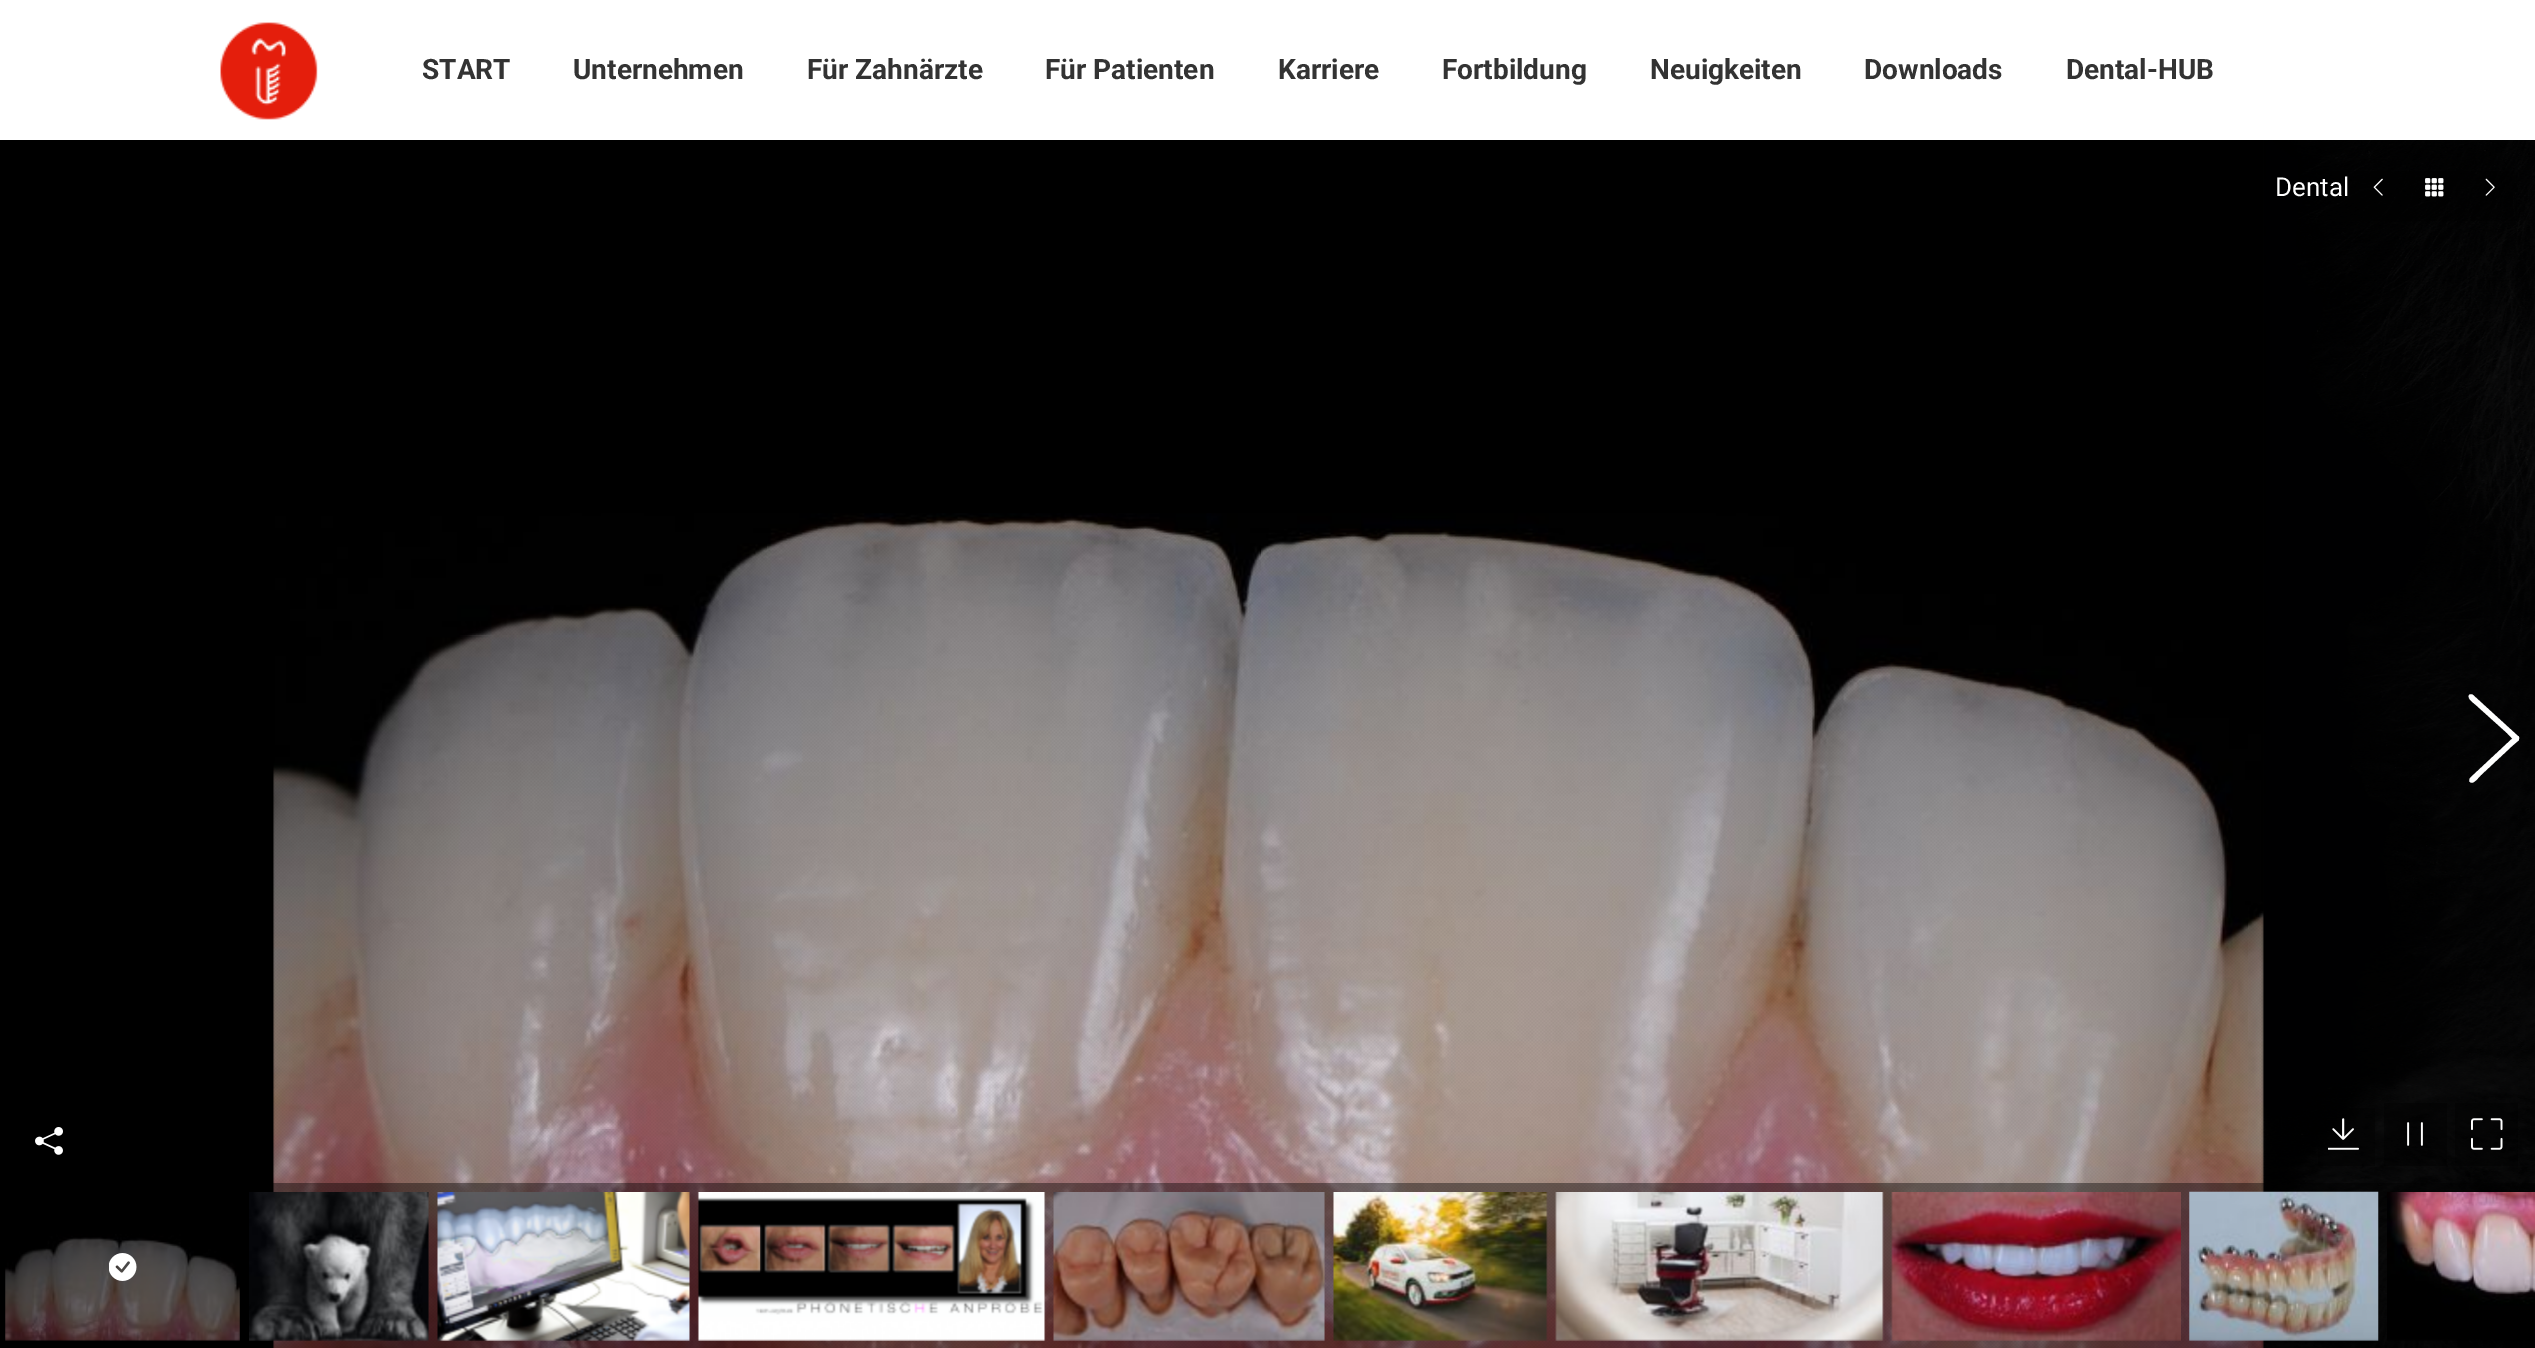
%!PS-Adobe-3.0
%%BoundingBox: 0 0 2535 1348
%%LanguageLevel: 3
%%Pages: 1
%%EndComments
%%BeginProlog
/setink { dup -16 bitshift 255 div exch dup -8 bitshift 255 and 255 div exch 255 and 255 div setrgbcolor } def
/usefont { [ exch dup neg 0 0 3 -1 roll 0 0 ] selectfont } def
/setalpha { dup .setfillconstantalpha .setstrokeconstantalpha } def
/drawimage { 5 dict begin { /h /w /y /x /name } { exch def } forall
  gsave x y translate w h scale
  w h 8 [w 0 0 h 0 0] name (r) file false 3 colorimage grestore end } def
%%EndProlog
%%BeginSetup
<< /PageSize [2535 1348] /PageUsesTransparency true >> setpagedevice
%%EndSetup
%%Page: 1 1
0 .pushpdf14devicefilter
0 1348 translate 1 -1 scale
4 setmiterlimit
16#FFFFFF setink
0 0 2535 1348 rectfill
(img1.raw) 220 22 98 98 drawimage
/Roboto-Bold 28 usefont
16#333333 setink
[
    [(START) 422 79]
    [(Unternehmen) 573 79]
    [(Für Zahnärzte) 807 79]
    [(Für Patienten) 1045 79]
    [(Karriere) 1278 79]
    [(Fortbildung) 1442 79]
    [(Neuigkeiten) 1650 79]
    [(Downloads) 1864 79]
    [(Dental-HUB) 2066 79]
] { aload pop moveto show } forall
16#000000 setink
0 140 2535 1208 rectfill
(img2.raw) 273 513 1991 835 drawimage
(img3.raw) 2263 140 272 1208 drawimage
(img4.raw) 273 522 1990 826 drawimage
0.4 setalpha
2318 171 199 50 rectfill
/Roboto-Regular 26 usefont
1 setalpha
16#FFFFFF setink
2275 196 moveto (Dental) show
(img5.raw) 2373 178 10 18 drawimage
(img6.raw) 2425 178 19 19 drawimage
(img7.raw) 2485 178 10 18 drawimage
2473 695 moveto 2519 737 lineto 2519 740 lineto 2516 744 2511 737 2507 733 curveto 2477 706 lineto 2474 703 2467 699 2469 695 curveto 2470 694 2472 694 2473 695 curveto closepath fill
2470 778 moveto 2515 736 lineto 2518 736 lineto 2522 739 2515 743 2511 747 curveto 2481 775 lineto 2478 778 2473 785 2470 782 curveto 2469 782 2469 780 2470 778 curveto closepath fill
(img8.raw) 35 1127 28 28 drawimage
0.4 setalpha
16#000000 setink
2318 1108 57 58 rectfill
1 setalpha
(img9.raw) 2328 1118 31 32 drawimage
0.4 setalpha
2384 1103 63 63 rectfill
1 setalpha
(img10.raw) 2407 1122 16 24 drawimage
0.4 setalpha
2455 1103 63 63 rectfill
1 setalpha
(img11.raw) 2471 1118 32 32 drawimage
0.4 setalpha
273 1183 2262 165 rectfill
1 setalpha
(img12.raw) 5 1234 235 107 drawimage
0.5 setalpha
5 1234 235 107 rectfill
1 setalpha
(img13.raw) 109 1253 28 28 drawimage
(img14.raw) 249 1192 180 149 drawimage
(img15.raw) 437 1192 253 149 drawimage
(img16.raw) 697 1192 349 149 drawimage
(img17.raw) 1053 1192 272 149 drawimage
(img18.raw) 1333 1192 215 149 drawimage
(img19.raw) 1555 1192 329 149 drawimage
(img20.raw) 1891 1192 290 149 drawimage
(img21.raw) 2189 1191 190 150 drawimage
(img22.raw) 2387 1192 148 149 drawimage
.poppdf14devicefilter showpage
%%EOF
